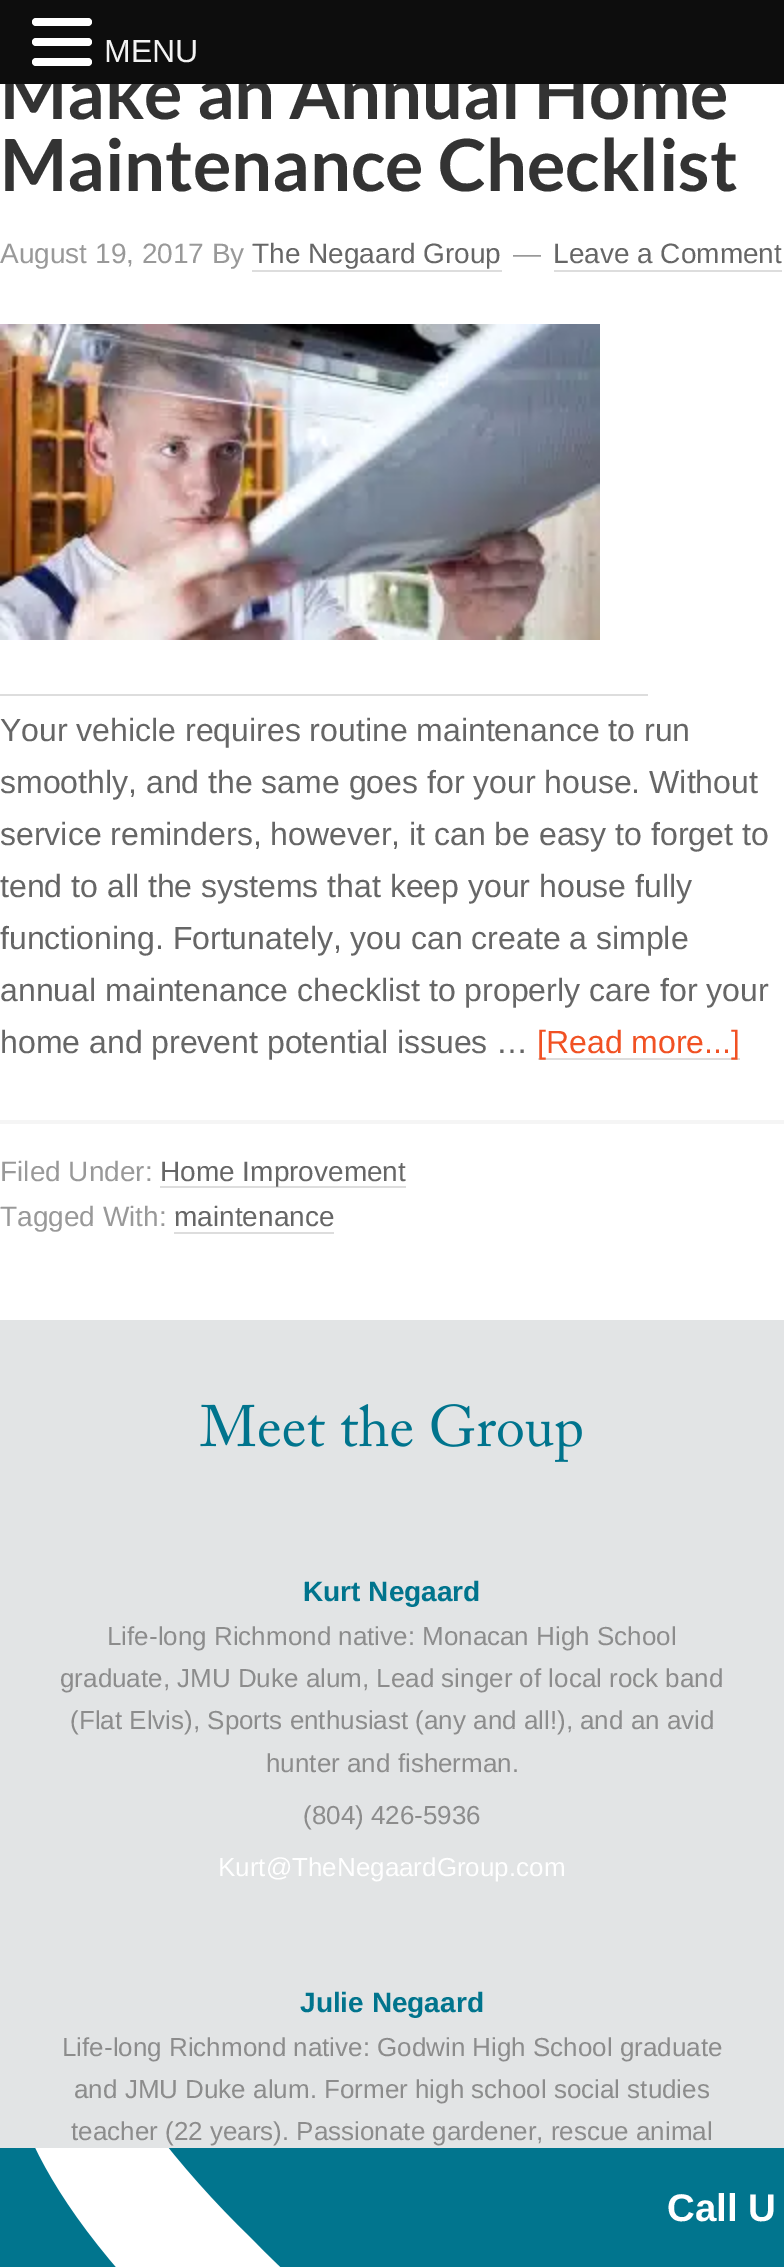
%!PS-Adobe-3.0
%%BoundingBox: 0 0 784 2267
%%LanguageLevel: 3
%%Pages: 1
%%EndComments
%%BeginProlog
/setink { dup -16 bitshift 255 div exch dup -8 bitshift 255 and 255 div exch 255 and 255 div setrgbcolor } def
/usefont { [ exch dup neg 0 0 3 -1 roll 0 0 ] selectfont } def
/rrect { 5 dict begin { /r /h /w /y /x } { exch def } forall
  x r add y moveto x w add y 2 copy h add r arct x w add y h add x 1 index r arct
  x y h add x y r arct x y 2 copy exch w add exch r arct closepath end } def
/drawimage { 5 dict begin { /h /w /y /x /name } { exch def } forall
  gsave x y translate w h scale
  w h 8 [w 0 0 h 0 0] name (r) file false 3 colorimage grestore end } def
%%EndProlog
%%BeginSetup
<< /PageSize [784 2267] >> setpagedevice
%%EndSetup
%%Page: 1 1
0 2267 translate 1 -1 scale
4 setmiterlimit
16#FFFFFF setink
0 0 784 2267 rectfill
/Lato-Bold 72 usefont
16#333333 setink
0 119 moveto (Make an Annual Home) show
16#0D0D0D setink
0 0 784 84 rectfill
16#FFFFFF setink
32 18 60 8 4 rrect fill
32 38 60 8 4 rrect fill
32 58 60 8 4 rrect fill
/LiberationSans-Regular 32 usefont
16#F2F2F2 setink
104 62 moveto (MENU) show
/Lato-Bold 72 usefont
16#333333 setink
0 191 moveto (Maintenance Checklist) show
/LiberationSans-Regular 28 usefont
16#999999 setink
0 263 moveto (August 19, 2017 By) show
16#666666 setink
252 263 moveto (The Negaard Group) show
16#DDDDDD setink
252 270 250 2 rectfill
16#999999 setink
513 263 moveto (—) show
16#666666 setink
553 263 moveto (Leave a Comment) show
16#DDDDDD setink
554 270 228 2 rectfill
(img1.raw) 0 324 600 316 drawimage
0 694 648 2 rectfill
/LiberationSans-Regular 32 usefont
16#666666 setink
[
    [(Your vehicle requires routine maintenance to run) 0 741]
    [(smoothly, and the same goes for your house. Without) 0 793]
    [(service reminders, however, it can be easy to forget to) 0 845]
    [(tend to all the systems that keep your house fully) 0 897]
    [(functioning. Fortunately, you can create a simple) 0 949]
    [(annual maintenance checklist to properly care for your) 0 1001]
    [(home and prevent potential issues …) 0 1053]
] { aload pop moveto show } forall
16#DDDDDD setink
538 1058 202 2 rectfill
16#F15123 setink
537 1053 moveto ([Read more...]) show
16#F5F5F5 setink
0 1120 784 4 rectfill
/LiberationSans-Regular 28 usefont
16#999999 setink
0 1181 moveto (Filed Under:) show
16#DDDDDD setink
160 1186 246 2 rectfill
16#666666 setink
160 1181 moveto (Home Improvement) show
16#999999 setink
0 1226 moveto (Tagged With:) show
16#666666 setink
174 1226 moveto (maintenance) show
16#DDDDDD setink
174 1232 160 2 rectfill
16#E2E4E5 setink
0 1320 784 828 rectfill
(img2.raw) 200 1404 382 58 drawimage
/LiberationSans-Bold 28 usefont
16#00748D setink
303 1601 moveto (Kurt Negaard) show
/LiberationSans-Regular 26 usefont
16#8C8C8C setink
[
    [(Life-long Richmond native: Monacan High School) 107 1645]
    [(graduate, JMU Duke alum, Lead singer of local rock band) 60 1687]
    [(\(Flat Elvis\), Sports enthusiast \(any and all!\), and an avid) 70 1729]
    [(hunter and fisherman.) 266 1772]
    [(\(804\) 426-5936) 303 1824]
] { aload pop moveto show } forall
16#FFFFFF setink
218 1876 moveto (Kurt@TheNegaardGroup.com) show
/LiberationSans-Bold 28 usefont
16#00748D setink
300 2012 moveto (Julie Negaard) show
/LiberationSans-Regular 26 usefont
16#8C8C8C setink
[
    [(Life-long Richmond native: Godwin High School graduate) 62 2056]
    [(and JMU Duke alum. Former high school social studies) 74 2098]
    [(teacher \(22 years\). Passionate gardener, rescue animal) 71 2140]
] { aload pop moveto show } forall
16#01758E setink
0 2148 784 119 rectfill
(img3.raw) 35 2148 246 119 drawimage
/LiberationSans-Bold 38.5 usefont
16#FFFFFF setink
667 2221 moveto (Call U) show
showpage
%%EOF
